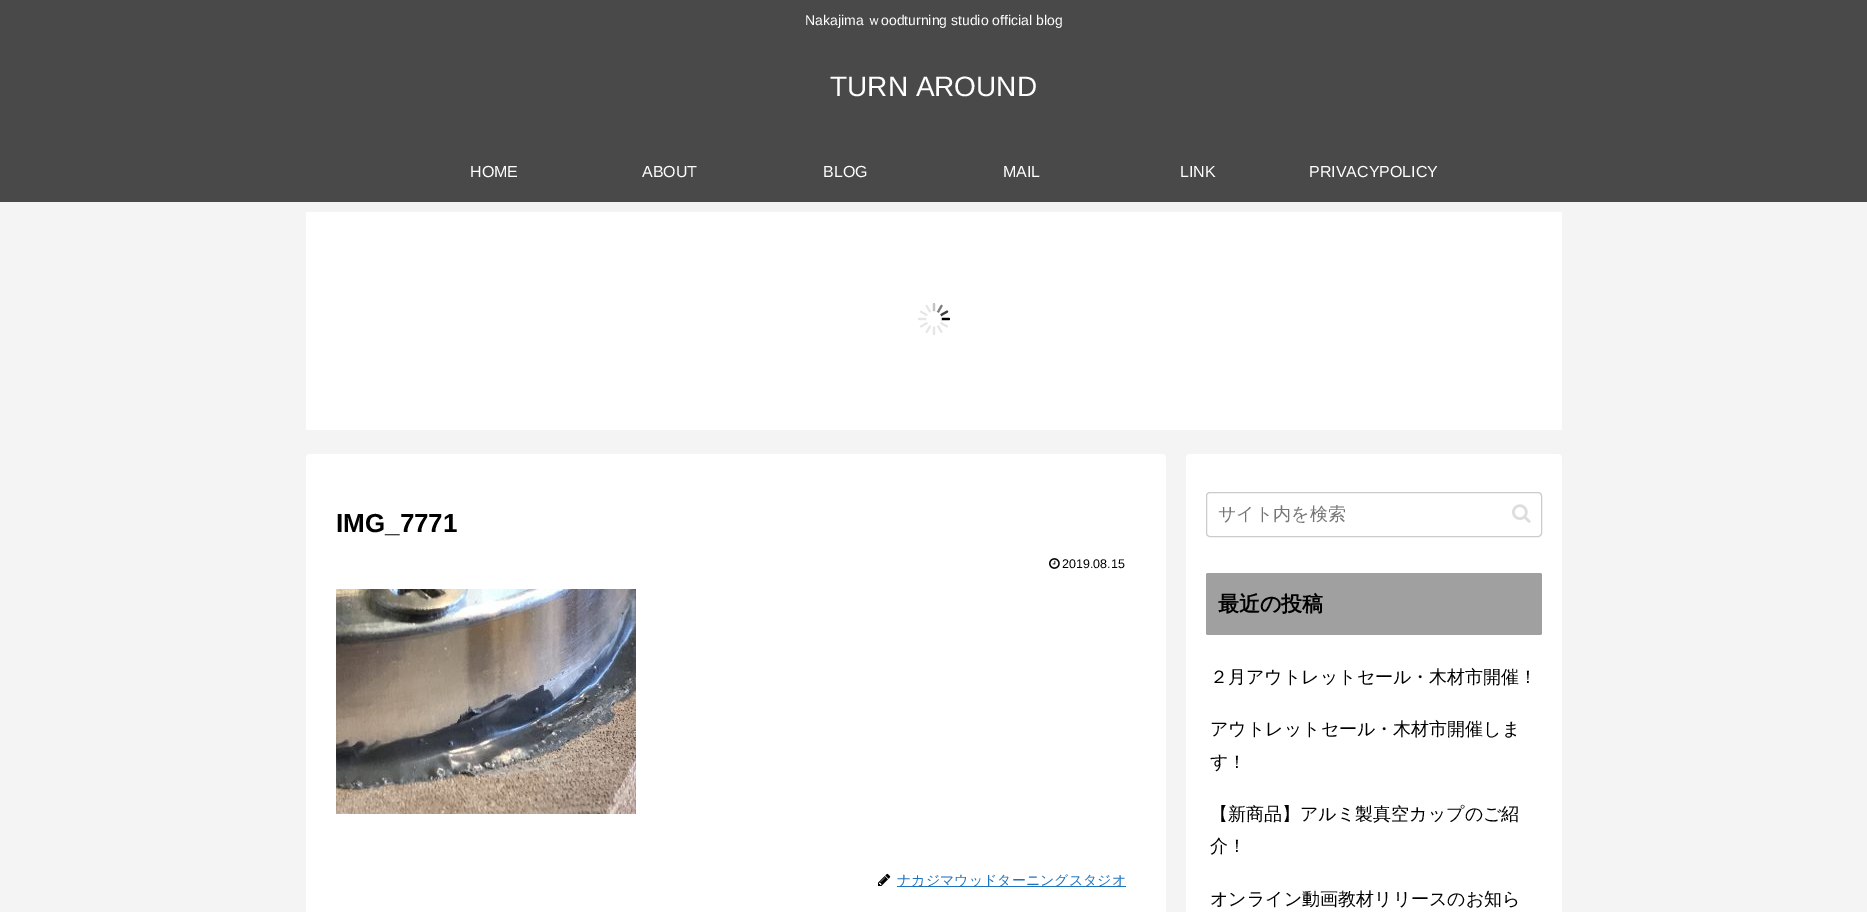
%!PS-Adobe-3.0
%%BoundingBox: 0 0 1867 912
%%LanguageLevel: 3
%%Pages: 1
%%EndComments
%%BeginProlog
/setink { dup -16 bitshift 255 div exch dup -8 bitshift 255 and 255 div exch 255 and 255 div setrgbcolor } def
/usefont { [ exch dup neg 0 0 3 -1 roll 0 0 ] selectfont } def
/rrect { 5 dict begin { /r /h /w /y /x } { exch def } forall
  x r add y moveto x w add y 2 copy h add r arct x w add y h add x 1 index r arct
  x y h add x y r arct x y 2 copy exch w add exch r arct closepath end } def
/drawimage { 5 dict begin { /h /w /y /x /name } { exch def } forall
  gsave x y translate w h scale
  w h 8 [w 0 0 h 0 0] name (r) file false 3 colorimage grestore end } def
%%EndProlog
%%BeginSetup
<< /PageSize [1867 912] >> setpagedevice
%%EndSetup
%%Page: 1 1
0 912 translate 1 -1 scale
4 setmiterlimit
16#F4F4F4 setink
0 0 1867 912 rectfill
16#494949 setink
0 0 1867 202 rectfill
/LiberationSans-Regular 14 usefont
16#FFFFFF setink
805 25 moveto (Nakajima) show
/WenQuanYiZenHei-Medium 14 usefont
867 25 moveto (ｗ) show
/LiberationSans-Regular 14 usefont
881 25 moveto (oodturning studio official blog) show
/LiberationSans-Regular 28 usefont
830 96 moveto (TURN AROUND) show
/LiberationSans-Regular 16 usefont
[
    [(HOME) 470 177]
    [(ABOUT) 642 177]
    [(BLOG) 823 177]
    [(MAIL) 1003 177]
    [(LINK) 1180 177]
    [(PRIVACYPOLICY) 1309 177]
] { aload pop moveto show } forall
306 212 1256 218 rectfill
(img1.raw) 918 303 32 32 drawimage
306 454 860 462 4 rrect fill
/LiberationSans-Bold 26 usefont
16#000000 setink
336 532 moveto (IMG_7771) show
(img2.raw) 1049 558 11 11 drawimage
/LiberationSans-Regular 12.5 usefont
1062 568 moveto (2019.08.15) show
(img3.raw) 336 589 300 225 drawimage
(img4.raw) 878 873 13 13 drawimage
16#1E73BE setink
897 886 229 1 rectfill
/WenQuanYiZenHei-Medium 14 usefont
897 885 moveto (ナカジマウッドターニングスタジオ) show
16#FFFFFF setink
1186 454 376 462 4 rrect fill
16#CCCCCC setink
1206.5 492.5 335 44 3.5 rrect stroke
/WenQuanYiZenHei-Medium 18 usefont
16#757575 setink
1218 520 moveto (サイト内を検索) show
(img5.raw) 1512 504 19 19 drawimage
16#A0A0A0 setink
1206 573 336 62 2 rrect fill
/WenQuanYiZenHei-Bold 21 usefont
16#000000 setink
1218 611 moveto (最近の投稿) show
/WenQuanYiZenHei-Medium 18 usefont
[
    [(２月アウトレットセール・木材市開催！) 1210 683]
    [(アウトレットセール・木材市開催しま) 1210 735]
    [(す！) 1210 768]
    [(【新商品】アルミ製真空カップのご紹) 1210 820]
    [(介！) 1210 852]
    [(オンライン動画教材リリースのお知ら) 1210 905]
] { aload pop moveto show } forall
showpage
%%EOF
